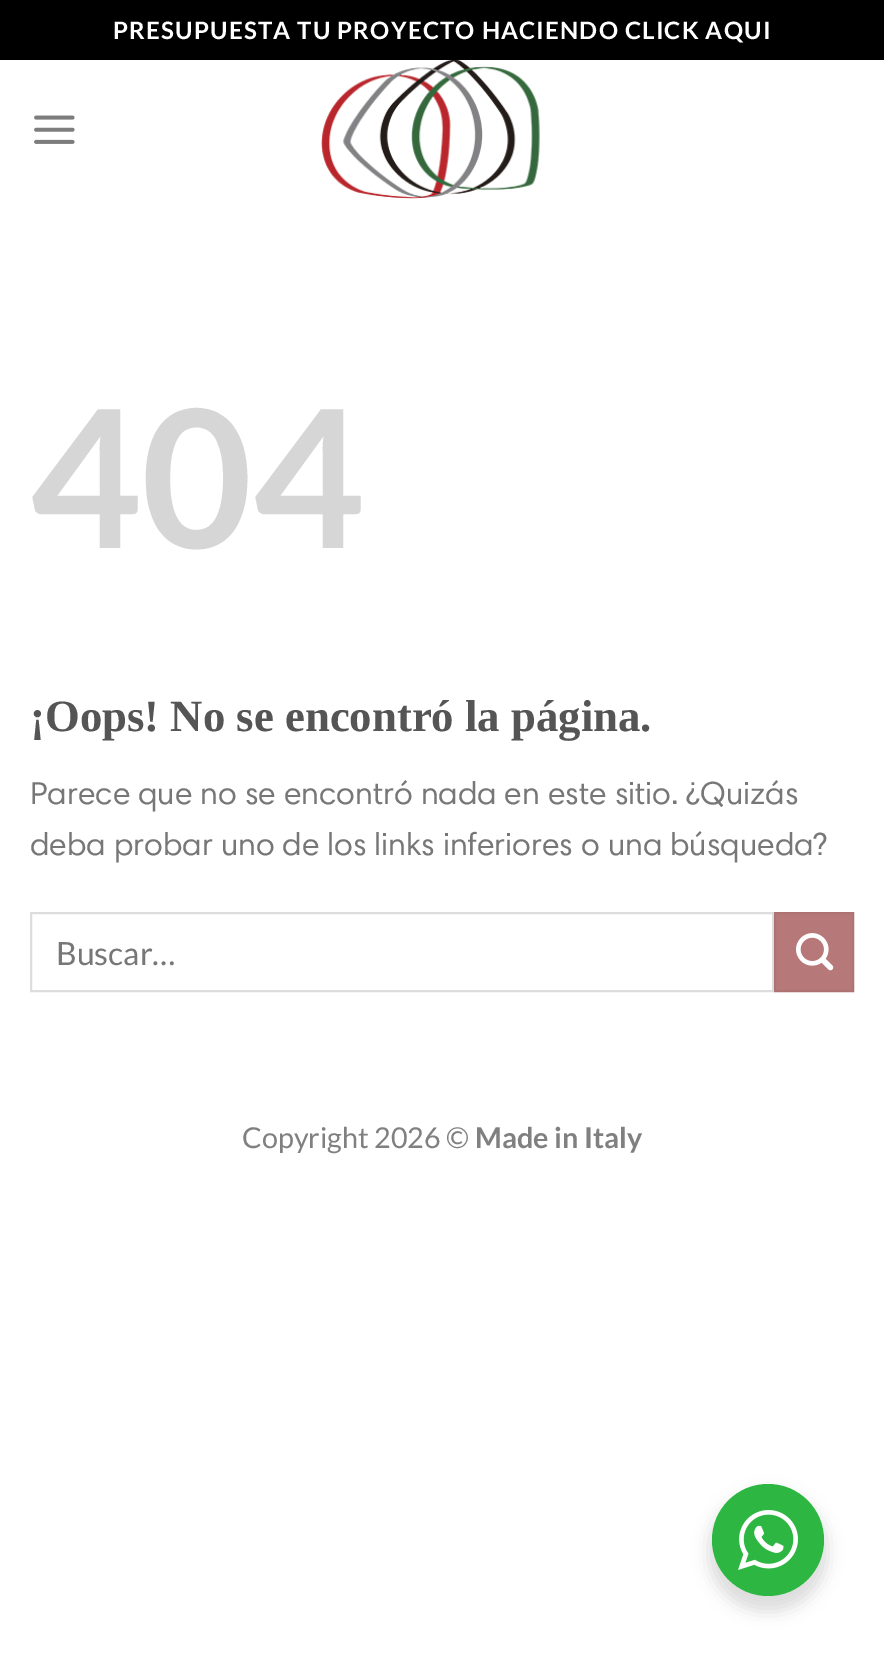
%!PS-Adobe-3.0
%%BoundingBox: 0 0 884 1656
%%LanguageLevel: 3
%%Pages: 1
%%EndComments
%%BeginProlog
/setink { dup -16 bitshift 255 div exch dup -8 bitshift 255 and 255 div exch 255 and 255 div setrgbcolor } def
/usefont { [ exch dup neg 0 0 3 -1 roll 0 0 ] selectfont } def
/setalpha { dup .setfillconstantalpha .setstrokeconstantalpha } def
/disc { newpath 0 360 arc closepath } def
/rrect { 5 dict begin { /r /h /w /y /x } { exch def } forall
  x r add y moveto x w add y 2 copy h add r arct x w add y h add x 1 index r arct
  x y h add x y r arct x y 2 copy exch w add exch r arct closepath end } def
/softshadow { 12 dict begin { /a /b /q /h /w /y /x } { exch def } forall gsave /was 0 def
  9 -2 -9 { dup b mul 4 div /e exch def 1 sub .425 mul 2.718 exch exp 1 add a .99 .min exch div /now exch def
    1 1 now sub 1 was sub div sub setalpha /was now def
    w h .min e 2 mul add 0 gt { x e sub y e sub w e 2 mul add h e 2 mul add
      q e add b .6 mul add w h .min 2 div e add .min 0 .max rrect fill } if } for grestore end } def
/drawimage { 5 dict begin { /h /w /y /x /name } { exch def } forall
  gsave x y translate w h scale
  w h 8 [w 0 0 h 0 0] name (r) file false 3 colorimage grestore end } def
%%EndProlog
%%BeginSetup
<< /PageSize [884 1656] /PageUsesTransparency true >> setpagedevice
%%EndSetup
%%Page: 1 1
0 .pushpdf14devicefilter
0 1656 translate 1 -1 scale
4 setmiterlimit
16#FFFFFF setink
0 0 884 1656 rectfill
16#000000 setink
0 0 884 60 rectfill
/Lato-Bold 24 usefont
16#FFFFFF setink
113 39 moveto 1.2 0 (PRESUPUESTA TU PROYECTO HACIENDO CLICK AQUI) ashow
(img1.raw) 34 115 41 29 drawimage
(img2.raw) 321 60 219 139 drawimage
/Lato-Bold 192 usefont
16#D6D6D6 setink
30 548 moveto (404) show
/LiberationSerif-Bold 44.75 usefont
16#555555 setink
30 731 moveto (¡Oops! No se encontró la página.) show
/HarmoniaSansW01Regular-Regular 32 usefont
16#777777 setink
30 804 moveto (Parece que no se encontró nada en este sitio. ¿Quizás) show
30 855 moveto (deba probar uno de los links inferiores o una búsqueda?) show
16#DDDDDD setink
2 setlinewidth
31 913 742 78 rectstroke
/Lato-Regular 32 usefont
16#777777 setink
56 965 moveto (Buscar…) show
16#B67878 setink
775 913 moveto 853 913 lineto 853 991 lineto 775 991 lineto closepath gsave fill grestore
16#AD7272 setink
stroke
(img3.raw) 796 933 38 38 drawimage
/Lato-Regular 28.75 usefont
16#808080 setink
242 1148 moveto (Copyright 2026 ©) show
/Lato-Bold 28.75 usefont
475 1148 moveto (Made in Italy) show
16#000000 setink
708 1492 120 120 60 8 0.14 softshadow
16#2DB742 setink
768 1540 56 disc fill
(img4.raw) 738 1510 60 60 drawimage
.poppdf14devicefilter showpage
%%EOF
